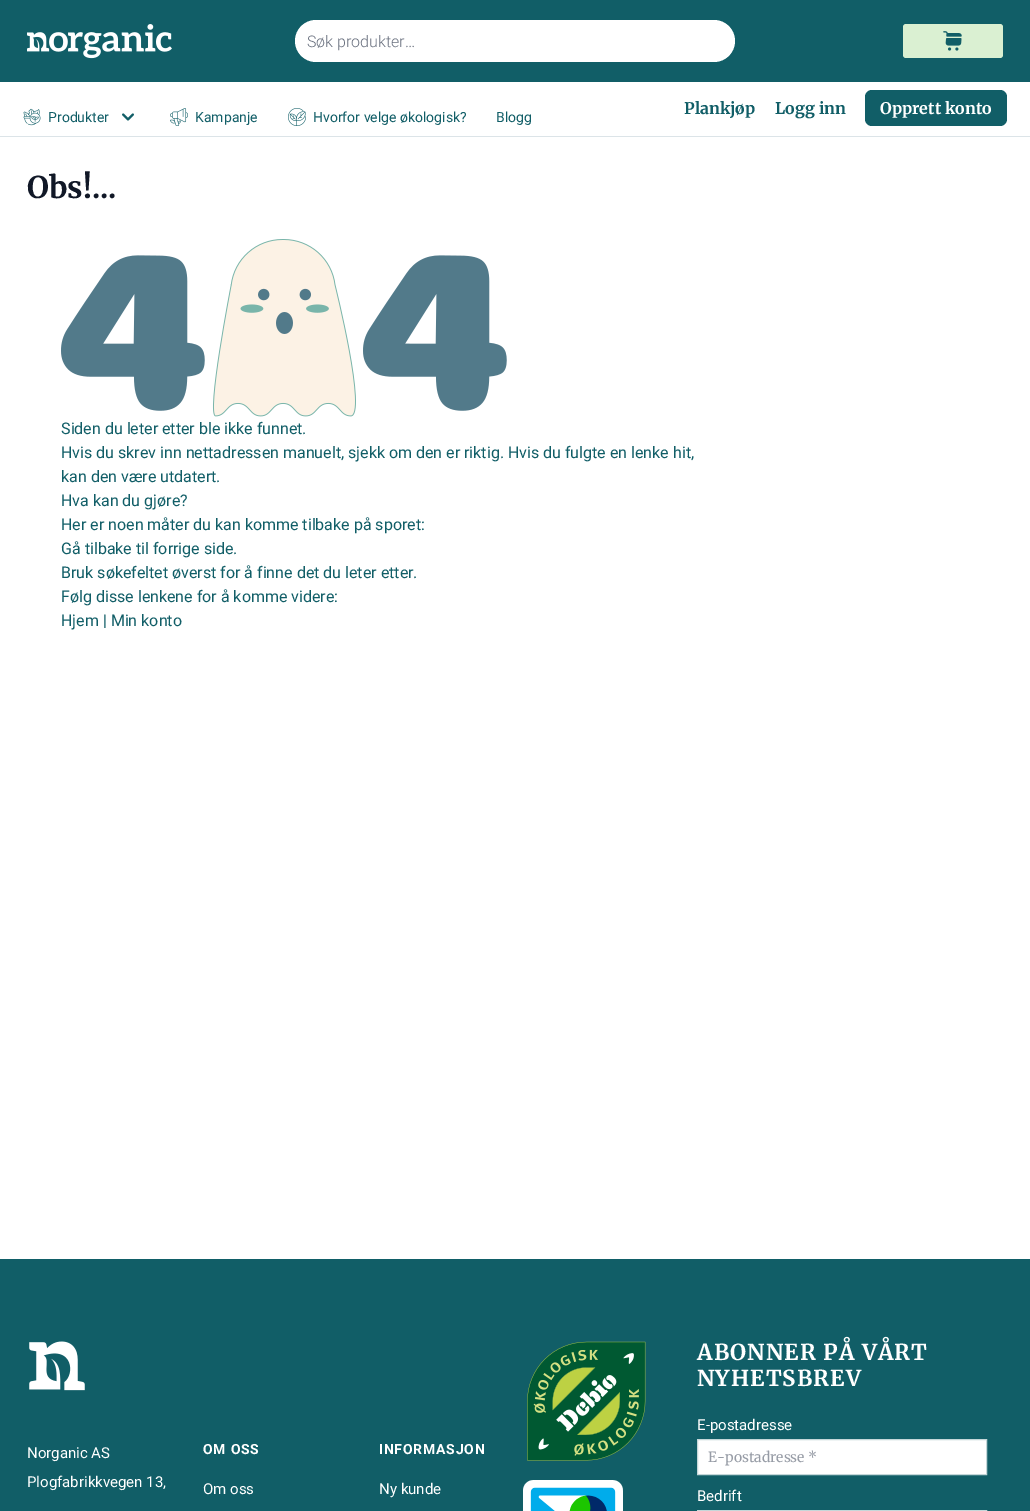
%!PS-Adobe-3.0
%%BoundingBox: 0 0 1030 1511
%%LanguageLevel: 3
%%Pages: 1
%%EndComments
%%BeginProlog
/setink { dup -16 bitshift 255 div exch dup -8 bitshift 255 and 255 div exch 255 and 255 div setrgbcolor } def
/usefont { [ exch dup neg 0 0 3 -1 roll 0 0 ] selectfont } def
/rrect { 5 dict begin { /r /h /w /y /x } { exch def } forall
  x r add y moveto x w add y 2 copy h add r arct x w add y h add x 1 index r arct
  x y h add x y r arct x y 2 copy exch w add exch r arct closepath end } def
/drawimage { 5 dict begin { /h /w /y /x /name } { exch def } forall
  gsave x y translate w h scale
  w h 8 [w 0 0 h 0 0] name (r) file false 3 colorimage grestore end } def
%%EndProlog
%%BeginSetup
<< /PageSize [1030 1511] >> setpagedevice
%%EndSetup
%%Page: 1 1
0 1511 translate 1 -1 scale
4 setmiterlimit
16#FFFFFF setink
0 0 1030 1511 rectfill
16#DCE4E8 setink
0 136 1030 1 rectfill
16#115E67 setink
0 0 1030 82 rectfill
(img1.raw) 27 24 145 35 drawimage
16#FFFFFF setink
295 20 440 42 21 rrect fill
/Roboto-Light 16 usefont
16#6B7280 setink
307 47 moveto (Søk produkter…) show
16#DAF0D2 setink
903 24 100 34 3 rrect fill
(img2.raw) 943 31 19 20 drawimage
(img3.raw) 23 108 18 18 drawimage
/Roboto-Regular 14 usefont
16#115E67 setink
48 122 moveto (Produkter) show
(img4.raw) 122 113 12 8 drawimage
(img5.raw) 170 108 18 18 drawimage
195 122 moveto (Kampanje) show
(img6.raw) 288 108 18 18 drawimage
313 122 moveto (Hvorfor velge økologisk?) show
496 122 moveto (Blogg) show
/Merriweather-Bold 16 usefont
684 114 moveto (Plankjøp) show
775 114 moveto (Logg inn) show
865 90 142 36 7 rrect fill
16#FFFFFF setink
880 114 moveto (Opprett konto) show
/Merriweather-Bold 30 usefont
16#111827 setink
27 198 moveto (Obs!...) show
(img7.raw) 61 239 446 178 drawimage
/Roboto-Regular 16 usefont
16#115E67 setink
[
    [(Siden du leter etter ble ikke funnet.) 61 434]
    [(Hvis du skrev inn nettadressen manuelt, sjekk om den er riktig. Hvis du fulgte en lenke hit,) 61 458]
    [(kan den være utdatert.) 61 482]
    [(Hva kan du gjøre?) 61 506]
    [(Her er noen måter du kan komme tilbake på sporet:) 61 530]
    [(Gå tilbake til forrige side.) 61 554]
    [(Bruk søkefeltet øverst for å finne det du leter etter.) 61 578]
    [(Følg disse lenkene for å komme videre:) 61 602]
    [(Hjem | Min konto) 61 626]
] { aload pop moveto show } forall
0 1259 1030 252 rectfill
(img8.raw) 29 1341 56 50 drawimage
/Roboto-Regular 15 usefont
16#FFFFFF setink
27 1458 moveto (Norganic AS) show
27 1487 moveto (Plogfabrikkvegen 13,) show
/Roboto-Bold 14 usefont
203 1454 moveto 0.75 0 (OM OSS) ashow
/Roboto-Regular 15 usefont
203 1494 moveto (Om oss) show
/Roboto-Bold 14 usefont
379 1454 moveto 0.75 0 (INFORMASJON) ashow
/Roboto-Regular 15 usefont
379 1494 moveto (Ny kunde) show
(img9.raw) 527 1341 119 120 drawimage
(img10.raw) 523 1480 100 31 drawimage
/Merriweather-Bold 22 usefont
697 1360 moveto 1.1 0 (ABONNER PÅ VÅRT) ashow
697 1386 moveto 1.1 0 (NYHETSBREV) ashow
/Roboto-Regular 15 usefont
697 1430 moveto (E-postadresse) show
697.5 1439.5 moveto 986.5 1439.5 lineto 986.5 1474.5 lineto 697.5 1474.5 lineto closepath gsave fill grestore
16#C4D7D9 setink
stroke
/Merriweather-Regular 14 usefont
16#979CA6 setink
708 1462 moveto (E-postadresse *) show
/Roboto-Regular 15 usefont
16#FFFFFF setink
697 1501 moveto (Bedrift) show
16#C4D7D9 setink
697.5 1510.5 289 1 rectstroke
showpage
%%EOF
